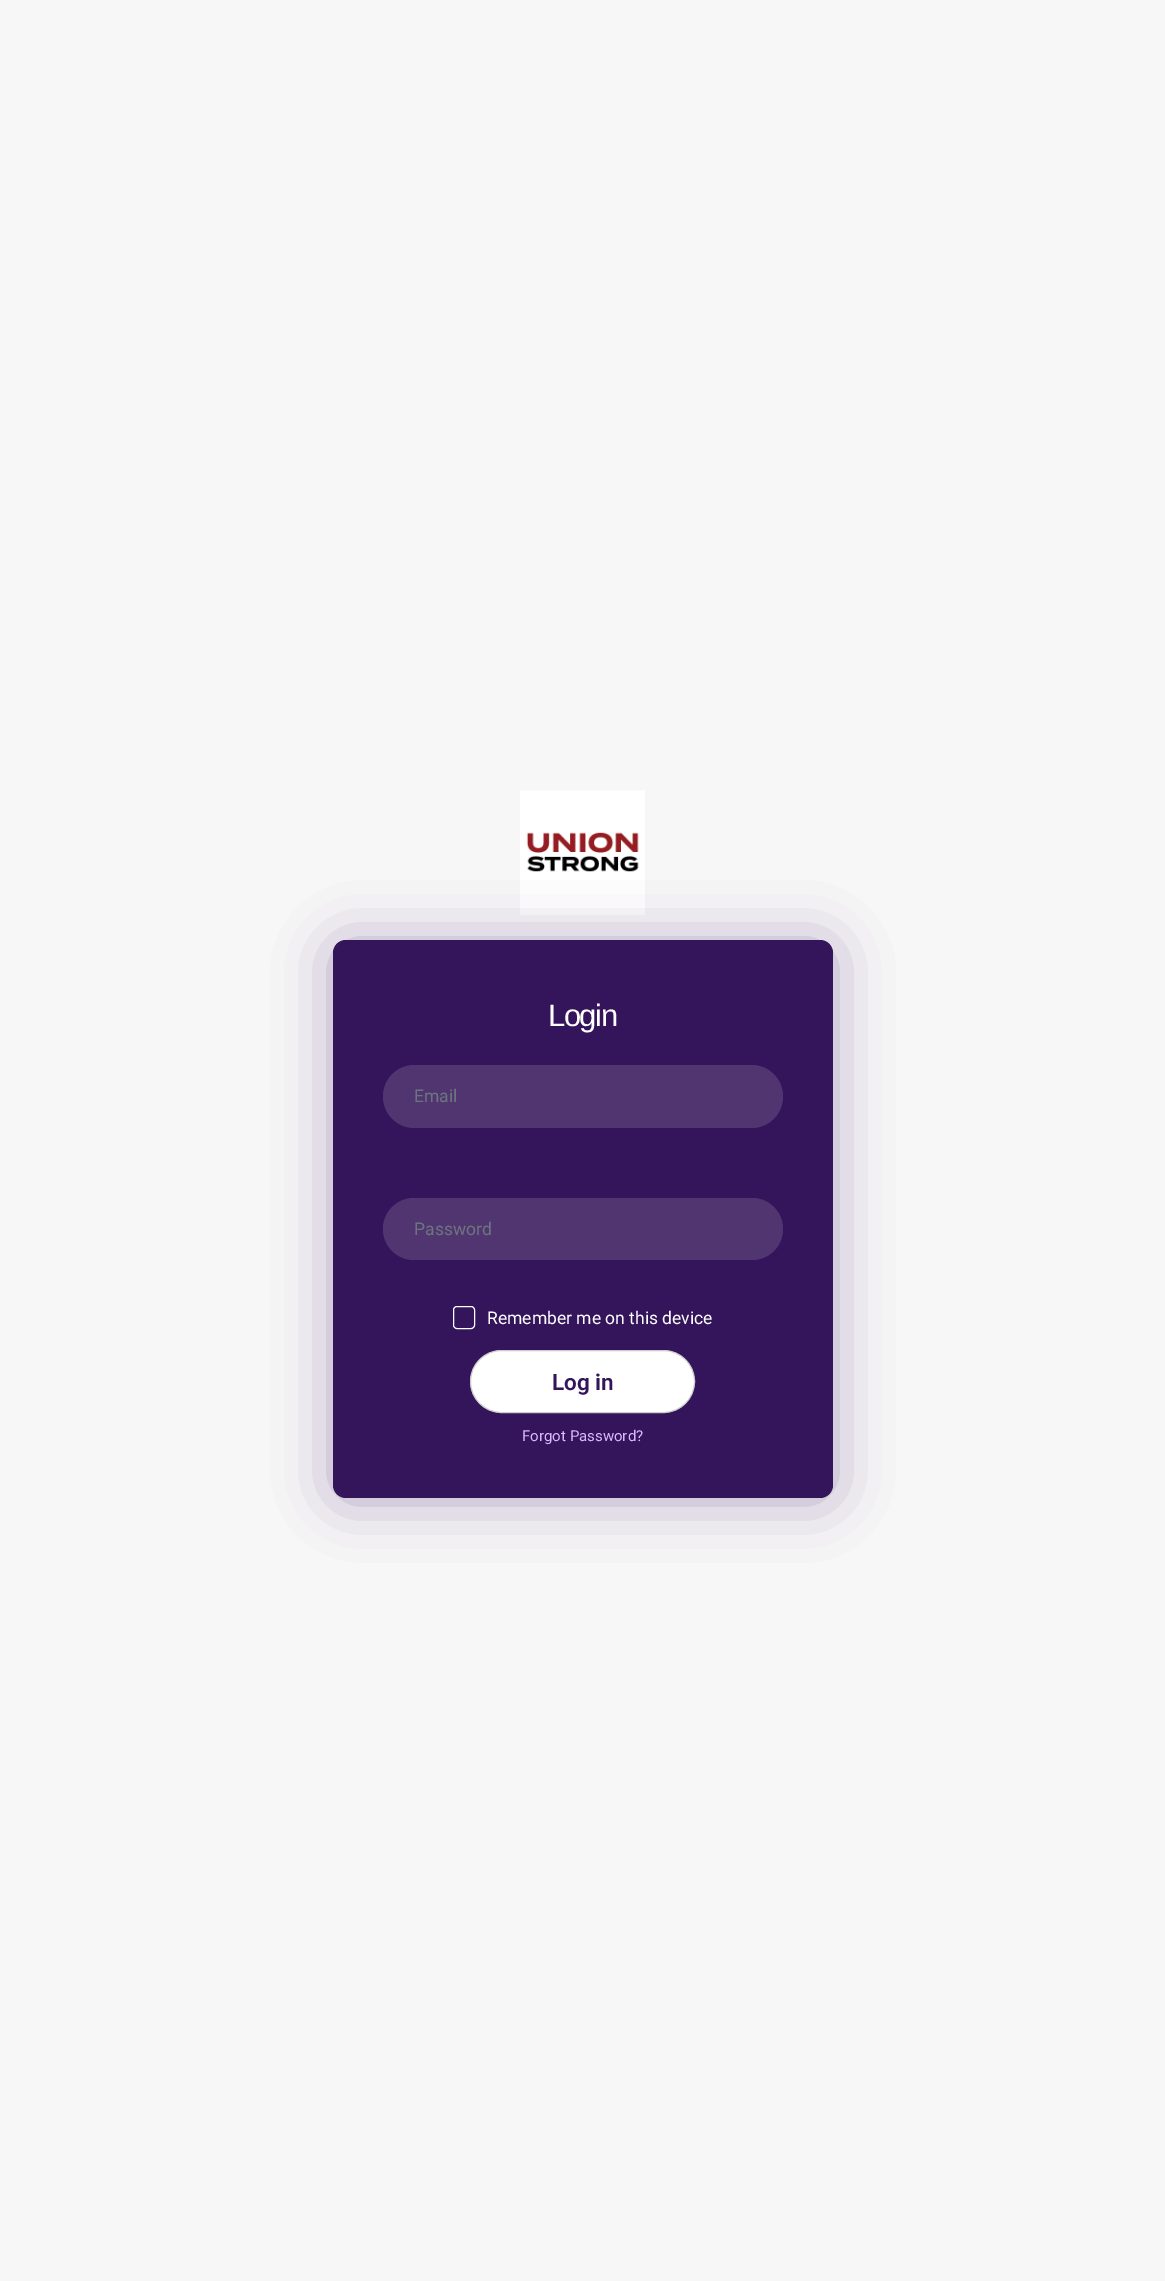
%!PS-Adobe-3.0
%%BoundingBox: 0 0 1165 2281
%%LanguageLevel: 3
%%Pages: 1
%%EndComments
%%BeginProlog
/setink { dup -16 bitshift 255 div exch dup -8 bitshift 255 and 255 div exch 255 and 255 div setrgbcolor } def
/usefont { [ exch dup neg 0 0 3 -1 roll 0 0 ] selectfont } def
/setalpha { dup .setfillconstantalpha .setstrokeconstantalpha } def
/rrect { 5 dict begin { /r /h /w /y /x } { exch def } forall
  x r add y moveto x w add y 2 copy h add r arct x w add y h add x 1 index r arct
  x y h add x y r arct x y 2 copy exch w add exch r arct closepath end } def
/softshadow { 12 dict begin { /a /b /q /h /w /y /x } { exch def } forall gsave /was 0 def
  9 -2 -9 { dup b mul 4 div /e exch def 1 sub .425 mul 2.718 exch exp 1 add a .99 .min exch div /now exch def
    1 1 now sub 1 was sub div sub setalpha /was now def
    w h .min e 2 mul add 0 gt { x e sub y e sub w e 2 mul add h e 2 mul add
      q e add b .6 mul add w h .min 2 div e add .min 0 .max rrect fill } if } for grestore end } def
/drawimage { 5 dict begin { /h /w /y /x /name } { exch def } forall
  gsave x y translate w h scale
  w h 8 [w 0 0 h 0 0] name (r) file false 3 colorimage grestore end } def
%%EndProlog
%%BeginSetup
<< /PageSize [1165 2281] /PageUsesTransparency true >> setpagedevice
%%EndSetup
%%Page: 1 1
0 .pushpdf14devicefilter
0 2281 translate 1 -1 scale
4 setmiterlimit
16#F7F7F7 setink
0 0 1165 2281 rectfill
(img1.raw) 520 790 125 125 drawimage
16#34145A setink
333 943 500 557 13 28 0.35 softshadow
333 940 500 558 13 rrect fill
/LiberationSans-Regular 31 usefont
16#FFFFFF setink
548 1026 moveto -1.5 0 (Login) ashow
16#513571 setink
383 1065 400 63 31.5 rrect fill
/Roboto-Regular 17.5 usefont
16#6C757D setink
414 1102 moveto (Email) show
16#513571 setink
383 1198 400 62 31 rrect fill
16#6C757D setink
414 1235 moveto (Password) show
16#FFFFFF setink
453.5 1306.5 21 22 3.5 rrect stroke
487 1324 moveto (Remember me on this device) show
470.5 1350.5 224 62 31 rrect gsave fill grestore
16#CCCCCC setink
stroke
/Roboto-SemiBold 22.5 usefont
16#34145A setink
552 1390 moveto (Log in) show
/Roboto-Regular 15 usefont
16#D9B8FF setink
522 1441 moveto (Forgot Password?) show
.poppdf14devicefilter showpage
%%EOF
